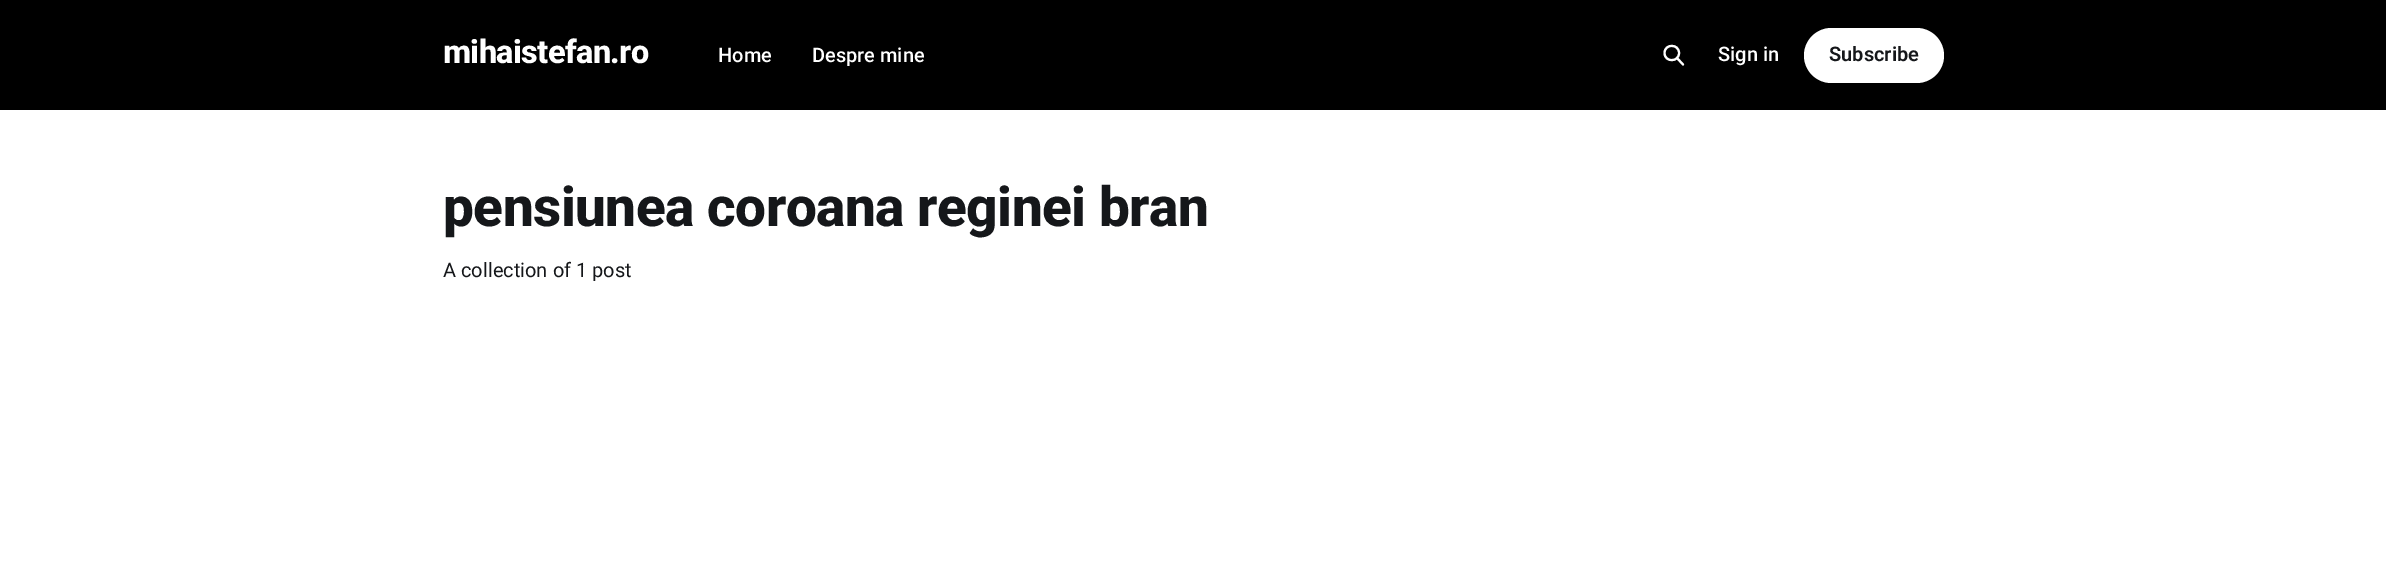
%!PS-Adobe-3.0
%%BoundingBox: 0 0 2386 577
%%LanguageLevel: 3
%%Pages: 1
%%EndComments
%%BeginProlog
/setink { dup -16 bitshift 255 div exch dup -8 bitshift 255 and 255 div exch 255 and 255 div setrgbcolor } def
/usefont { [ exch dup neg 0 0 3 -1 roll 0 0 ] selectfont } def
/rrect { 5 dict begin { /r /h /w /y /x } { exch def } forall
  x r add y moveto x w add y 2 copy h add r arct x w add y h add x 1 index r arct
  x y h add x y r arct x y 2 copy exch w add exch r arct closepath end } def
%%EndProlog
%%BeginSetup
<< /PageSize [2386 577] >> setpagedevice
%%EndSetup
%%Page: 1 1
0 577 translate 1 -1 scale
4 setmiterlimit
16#FFFFFF setink
0 0 2386 577 rectfill
16#000000 setink
0 0 2386 110 rectfill
/Roboto-ExtraBold 32.5 usefont
16#FFFFFF setink
443 63 moveto -0.6 0 (mihaistefan.ro) ashow
/Roboto-Medium 20 usefont
718 62 moveto (Home) show
812 62 moveto (Despre mine) show
2.1 setlinewidth
1 setlinecap
1 setlinejoin
1683 64.5 moveto 1677 58 lineto 1679 53 moveto 1679 62.5 1664.5 62.5 1664.5 53 curveto 1664.5 43.5 1679 43.5 1679 53 curveto closepath stroke
1718 61 moveto (Sign in) show
1804 28 140 55 27.5 rrect fill
/Roboto-SemiBold 20 usefont
16#15171A setink
1829 61 moveto (Subscribe) show
/Roboto-ExtraBold 55 usefont
443 226 moveto -0.55 0 (pensiunea coroana reginei bran) ashow
/Roboto-Regular 20 usefont
443 277 moveto (A collection of 1 post) show
showpage
%%EOF
